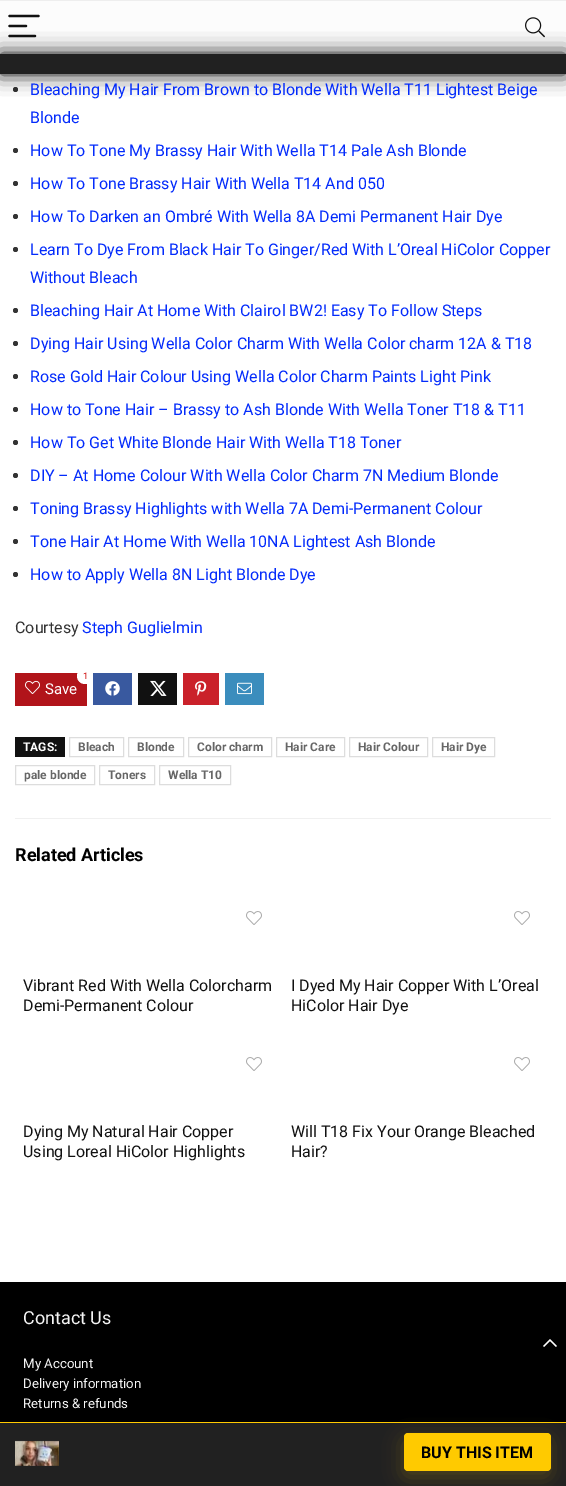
%!PS-Adobe-3.0
%%BoundingBox: 0 0 566 1486
%%LanguageLevel: 3
%%Pages: 1
%%EndComments
%%BeginProlog
/setink { dup -16 bitshift 255 div exch dup -8 bitshift 255 and 255 div exch 255 and 255 div setrgbcolor } def
/usefont { [ exch dup neg 0 0 3 -1 roll 0 0 ] selectfont } def
/setalpha { dup .setfillconstantalpha .setstrokeconstantalpha } def
/disc { newpath 0 360 arc closepath } def
/rrect { 5 dict begin { /r /h /w /y /x } { exch def } forall
  x r add y moveto x w add y 2 copy h add r arct x w add y h add x 1 index r arct
  x y h add x y r arct x y 2 copy exch w add exch r arct closepath end } def
/softshadow { 12 dict begin { /a /b /q /h /w /y /x } { exch def } forall gsave /was 0 def
  9 -2 -9 { dup b mul 4 div /e exch def 1 sub .425 mul 2.718 exch exp 1 add a .99 .min exch div /now exch def
    1 1 now sub 1 was sub div sub setalpha /was now def
    w h .min e 2 mul add 0 gt { x e sub y e sub w e 2 mul add h e 2 mul add
      q e add b .6 mul add w h .min 2 div e add .min 0 .max rrect fill } if } for grestore end } def
/drawimage { 5 dict begin { /h /w /y /x /name } { exch def } forall
  gsave x y translate w h scale
  w h 8 [w 0 0 h 0 0] name (r) file false 3 colorimage grestore end } def
%%EndProlog
%%BeginSetup
<< /PageSize [566 1486] /PageUsesTransparency true >> setpagedevice
%%EndSetup
%%Page: 1 1
0 .pushpdf14devicefilter
0 1486 translate 1 -1 scale
4 setmiterlimit
16#FFFFFF setink
0 0 566 1486 rectfill
16#FCFCFC setink
0 1 566 53 rectfill
16#111111 setink
2.2 setlinewidth
1 setlinecap
9.5 16 moveto 38.5 16 lineto 9.5 26 moveto 26 26 lineto 9.5 36 moveto 35 36 lineto stroke
(img1.raw) 525 17 20 21 drawimage
16#333333 setink
15.5 89.5 2.5 disc fill
16#000000 setink
0 54 566 20 0 10 1 softshadow
16#212121 setink
0 54 566 20 rectfill
16#EEEEEE setink
0 0 566 1 rectfill
/Roboto-Regular 16 usefont
16#032BFB setink
30 95 moveto (Bleaching My Hair From Brown to Blonde With Wella T11 Lightest Beige) show
30 123 moveto (Blonde) show
16#333333 setink
15.5 150.5 2.5 disc fill
16#032BFB setink
30 156 moveto (How To Tone My Brassy Hair With Wella T14 Pale Ash Blonde) show
16#333333 setink
15.5 183.5 2.5 disc fill
16#032BFB setink
30 189 moveto (How To Tone Brassy Hair With Wella T14 And 050) show
16#333333 setink
15.5 216.5 2.5 disc fill
16#032BFB setink
30 222 moveto (How To Darken an Ombré With Wella 8A Demi Permanent Hair Dye) show
16#333333 setink
15.5 249.5 2.5 disc fill
16#032BFB setink
30 255 moveto (Learn To Dye From Black Hair To Ginger/Red With L’Oreal HiColor Copper) show
30 283 moveto (Without Bleach) show
16#333333 setink
15.5 310.5 2.5 disc fill
16#032BFB setink
30 316 moveto (Bleaching Hair At Home With Clairol BW2! Easy To Follow Steps) show
16#333333 setink
15.5 343.5 2.5 disc fill
16#032BFB setink
30 349 moveto (Dying Hair Using Wella Color Charm With Wella Color charm 12A & T18) show
16#333333 setink
15.5 376.5 2.5 disc fill
16#032BFB setink
30 382 moveto (Rose Gold Hair Colour Using Wella Color Charm Paints Light Pink) show
16#333333 setink
15.5 409.5 2.5 disc fill
16#032BFB setink
30 415 moveto (How to Tone Hair – Brassy to Ash Blonde With Wella Toner T18 & T11) show
16#333333 setink
15.5 442.5 2.5 disc fill
16#032BFB setink
30 448 moveto (How To Get White Blonde Hair With Wella T18 Toner) show
16#333333 setink
15.5 475.5 2.5 disc fill
16#032BFB setink
30 481 moveto (DIY – At Home Colour With Wella Color Charm 7N Medium Blonde) show
16#333333 setink
15.5 508.5 2.5 disc fill
16#032BFB setink
30 514 moveto (Toning Brassy Highlights with Wella 7A Demi-Permanent Colour) show
16#333333 setink
15.5 541.5 2.5 disc fill
16#032BFB setink
30 547 moveto (Tone Hair At Home With Wella 10NA Lightest Ash Blonde) show
16#333333 setink
15.5 574.5 2.5 disc fill
16#032BFB setink
30 580 moveto (How to Apply Wella 8N Light Blonde Dye) show
16#333333 setink
15 633 moveto (Courtesy) show
16#032BFB setink
82 633 moveto (Steph Guglielmin) show
16#212121 setink
0 1423 566 63 rectfill
16#FFCA00 setink
0 1422 566 1 rectfill
(img2.raw) 15 1440 44 26 drawimage
16#000000 setink
0 1282 566 140 rectfill
16#FFCA00 setink
403 1439 147 38 4 9.5 0.2 softshadow
404 1433 147 38 4 rrect fill
/Roboto-Bold 16 usefont
16#000000 setink
421 1458 moveto (BUY THIS ITEM) show
16#B1141A setink
15 673 72 33 rectfill
16#FFFFFF setink
77 668 17 16 8 rrect fill
/Roboto-Regular 9 usefont
16#CC0000 setink
83 679 moveto (1) show
(img3.raw) 25 680 15 14 drawimage
/Roboto-Regular 15 usefont
16#FFFFFF setink
45 694 moveto (Save) show
16#39599F setink
93 673 39 32 rectfill
(img4.raw) 105 681 15 15 drawimage
16#111111 setink
138 673 39 32 rectfill
(img5.raw) 150 680 17 16 drawimage
16#CA212A setink
183 673 36 32 rectfill
(img6.raw) 195 681 12 15 drawimage
16#3B8DBD setink
225 673 39 32 rectfill
(img7.raw) 237 682 15 13 drawimage
16#111111 setink
15 737 50 20 rectfill
/Roboto-Bold 12 usefont
16#FFFFFF setink
23 751 moveto (TAGS:) show
16#DDDDDD setink
1 setlinewidth
0 setlinecap
69.5 737.5 54 19 rectstroke
16#666666 setink
78 751 moveto (Bleach) show
16#DDDDDD setink
128.5 737.5 55 19 rectstroke
16#666666 setink
137 751 moveto (Blonde) show
16#DDDDDD setink
188.5 737.5 83 19 rectstroke
16#666666 setink
197 751 moveto (Color charm) show
16#DDDDDD setink
276.5 737.5 68 19 rectstroke
16#666666 setink
285 751 moveto (Hair Care) show
16#DDDDDD setink
349.5 737.5 78 19 rectstroke
16#666666 setink
358 751 moveto (Hair Colour) show
16#DDDDDD setink
432.5 737.5 62 19 rectstroke
16#666666 setink
441 751 moveto (Hair Dye) show
16#DDDDDD setink
15.5 765.5 79 19 rectstroke
16#666666 setink
24 779 moveto (pale blonde) show
16#DDDDDD setink
99.5 765.5 55 19 rectstroke
16#666666 setink
108 779 moveto (Toners) show
16#DDDDDD setink
159.5 765.5 71 19 rectstroke
16#666666 setink
168 779 moveto (Wella T10) show
16#F0F0F0 setink
15 818 536 1 rectfill
/Roboto-Bold 18 usefont
16#000000 setink
15 861 moveto (Related Articles) show
(img8.raw) 246 911 16 14 drawimage
/Roboto-Regular 16 usefont
16#111111 setink
23 991 moveto (Vibrant Red With Wella Colorcharm) show
23 1011 moveto (Demi-Permanent Colour) show
(img8.raw) 514 911 16 14 drawimage
291 991 moveto (I Dyed My Hair Copper With L’Oreal) show
291 1011 moveto (HiColor Hair Dye) show
(img8.raw) 246 1057 16 14 drawimage
23 1137 moveto (Dying My Natural Hair Copper) show
23 1157 moveto (Using Loreal HiColor Highlights) show
(img8.raw) 514 1057 16 14 drawimage
291 1137 moveto (Will T18 Fix Your Orange Bleached) show
291 1157 moveto (Hair?) show
/Roboto-Regular 18 usefont
16#F5F5F5 setink
23 1324 moveto (Contact Us) show
/Roboto-Regular 13.25 usefont
[
    [(My Account) 23 1368]
    [(Delivery information) 23 1388]
    [(Returns & refunds) 23 1408]
] { aload pop moveto show } forall
(img9.raw) 543 1339 14 8 drawimage
.poppdf14devicefilter showpage
%%EOF
